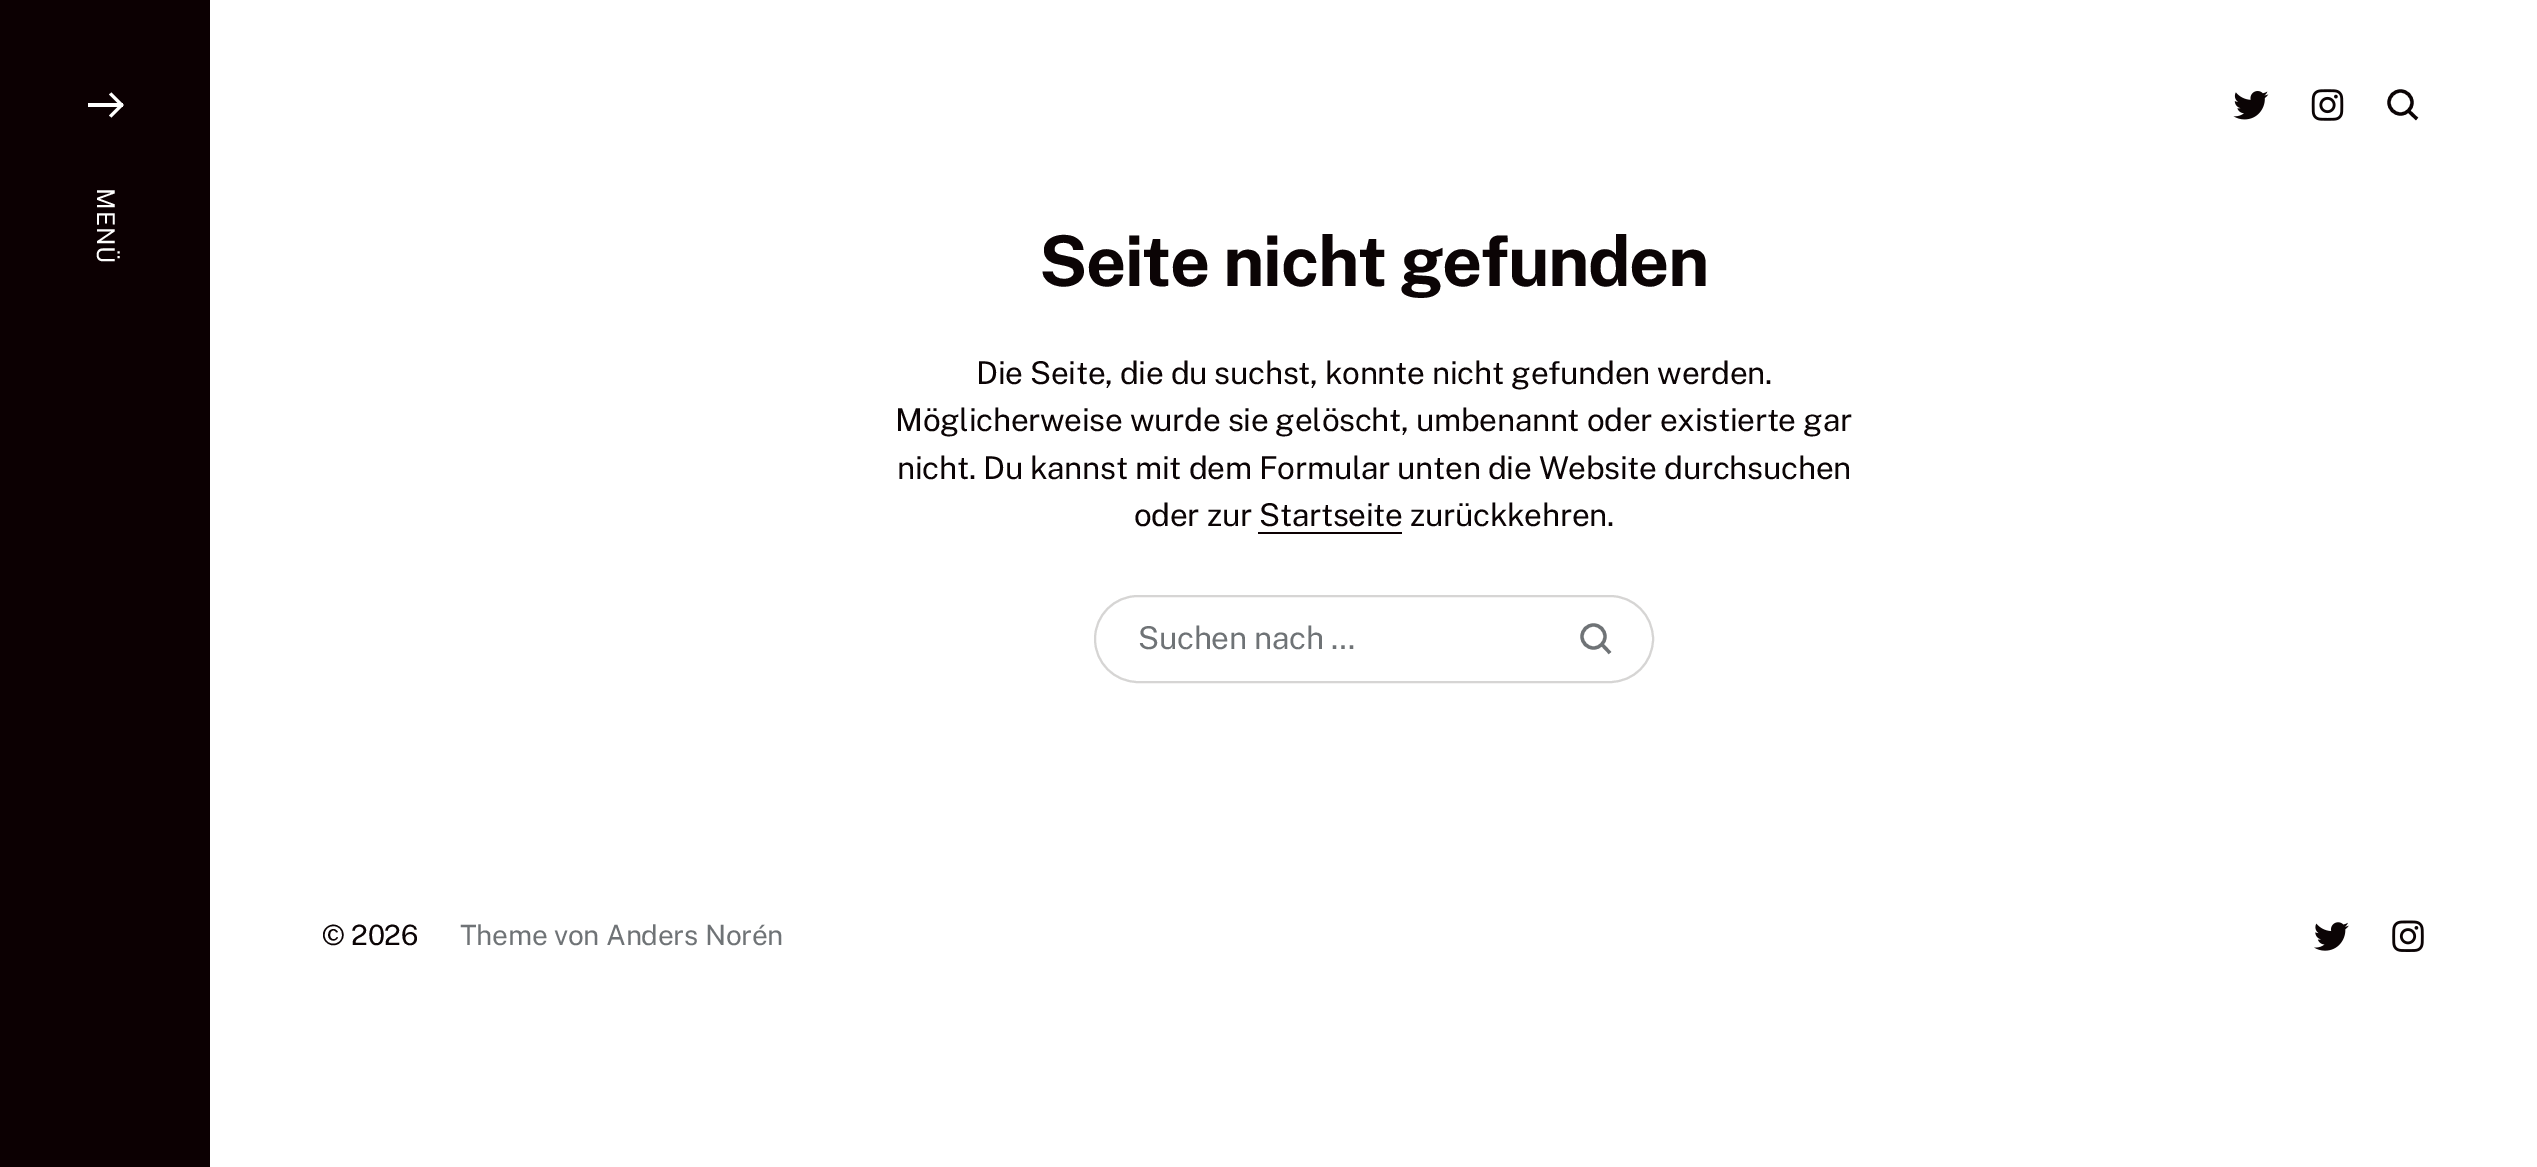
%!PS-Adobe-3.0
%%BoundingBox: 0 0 2537 1167
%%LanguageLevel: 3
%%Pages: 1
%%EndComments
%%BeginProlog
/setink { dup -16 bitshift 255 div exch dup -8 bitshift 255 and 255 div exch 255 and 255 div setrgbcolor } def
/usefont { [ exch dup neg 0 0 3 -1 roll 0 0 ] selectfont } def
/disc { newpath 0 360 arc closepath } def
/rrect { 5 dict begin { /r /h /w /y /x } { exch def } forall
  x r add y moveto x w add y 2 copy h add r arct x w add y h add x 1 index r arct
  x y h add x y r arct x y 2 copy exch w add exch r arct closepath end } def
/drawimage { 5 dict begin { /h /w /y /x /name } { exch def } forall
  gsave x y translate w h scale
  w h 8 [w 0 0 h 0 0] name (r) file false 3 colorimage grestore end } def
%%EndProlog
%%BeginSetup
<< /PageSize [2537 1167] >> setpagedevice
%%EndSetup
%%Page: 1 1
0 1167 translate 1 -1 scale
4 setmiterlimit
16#FFFFFF setink
0 0 2537 1167 rectfill
16#0C0002 setink
0 0 210 1167 rectfill
(img1.raw) 2233 91 36 29 drawimage
(img2.raw) 2311 89 33 32 drawimage
16#0B0405 setink
3.3 setlinewidth
2400.5 102.5 11.5 disc stroke
2417 119 moveto 2407.5 110 lineto stroke
16#FFFFFF setink
111.5 92.5 moveto 123.5 104.5 lineto 121.5 107 lineto 109 94.5 lineto closepath fill
88 103 35 4 rectfill
109 115.5 moveto 121.5 103 lineto 123.5 105.5 lineto 111.5 117.5 lineto closepath fill
/PublicSans-Regular 24.5 usefont
gsave 97 188 translate 90 rotate 0 0 moveto 1 0 (MENÜ) ashow grestore
/PublicSans-Bold 70 usefont
16#0B0405 setink
1039 286 moveto -1.4 0 (Seite nicht gefunden) ashow
/PublicSans-Regular 31.5 usefont
976 384 moveto -0.32 0 (Die Seite, die du suchst, konnte nicht gefunden werden.) ashow
895 431 moveto -0.32 0 (Möglicherweise wurde sie gelöscht, umbenannt oder existierte gar) ashow
897 479 moveto -0.32 0 (nicht. Du kannst mit dem Formular unten die Website durchsuchen) ashow
1134 526 moveto -0.32 0 (oder zur) ashow
1259 526 moveto -0.32 0 (Startseite) ashow
16#0C0002 setink
1258 532 144 2 rectfill
16#0B0405 setink
1410 526 moveto -0.32 0 (zurückkehren.) ashow
16#D6D5D4 setink
2 setlinewidth
1095 596 558 86 43 rrect stroke
16#6F7376 setink
1138 649 moveto -0.32 0 (Suchen nach …) ashow
3.3 setlinewidth
1593.5 636.5 11.5 disc stroke
1610 653 moveto 1601 643.5 lineto stroke
/PublicSans-Regular 28 usefont
16#0B0405 setink
322 945 moveto -0.25 0 (© 2026) ashow
16#6F7376 setink
460 945 moveto -0.25 0 (Theme von Anders Norén) ashow
(img3.raw) 2314 922 35 29 drawimage
(img4.raw) 2392 920 32 32 drawimage
showpage
%%EOF
